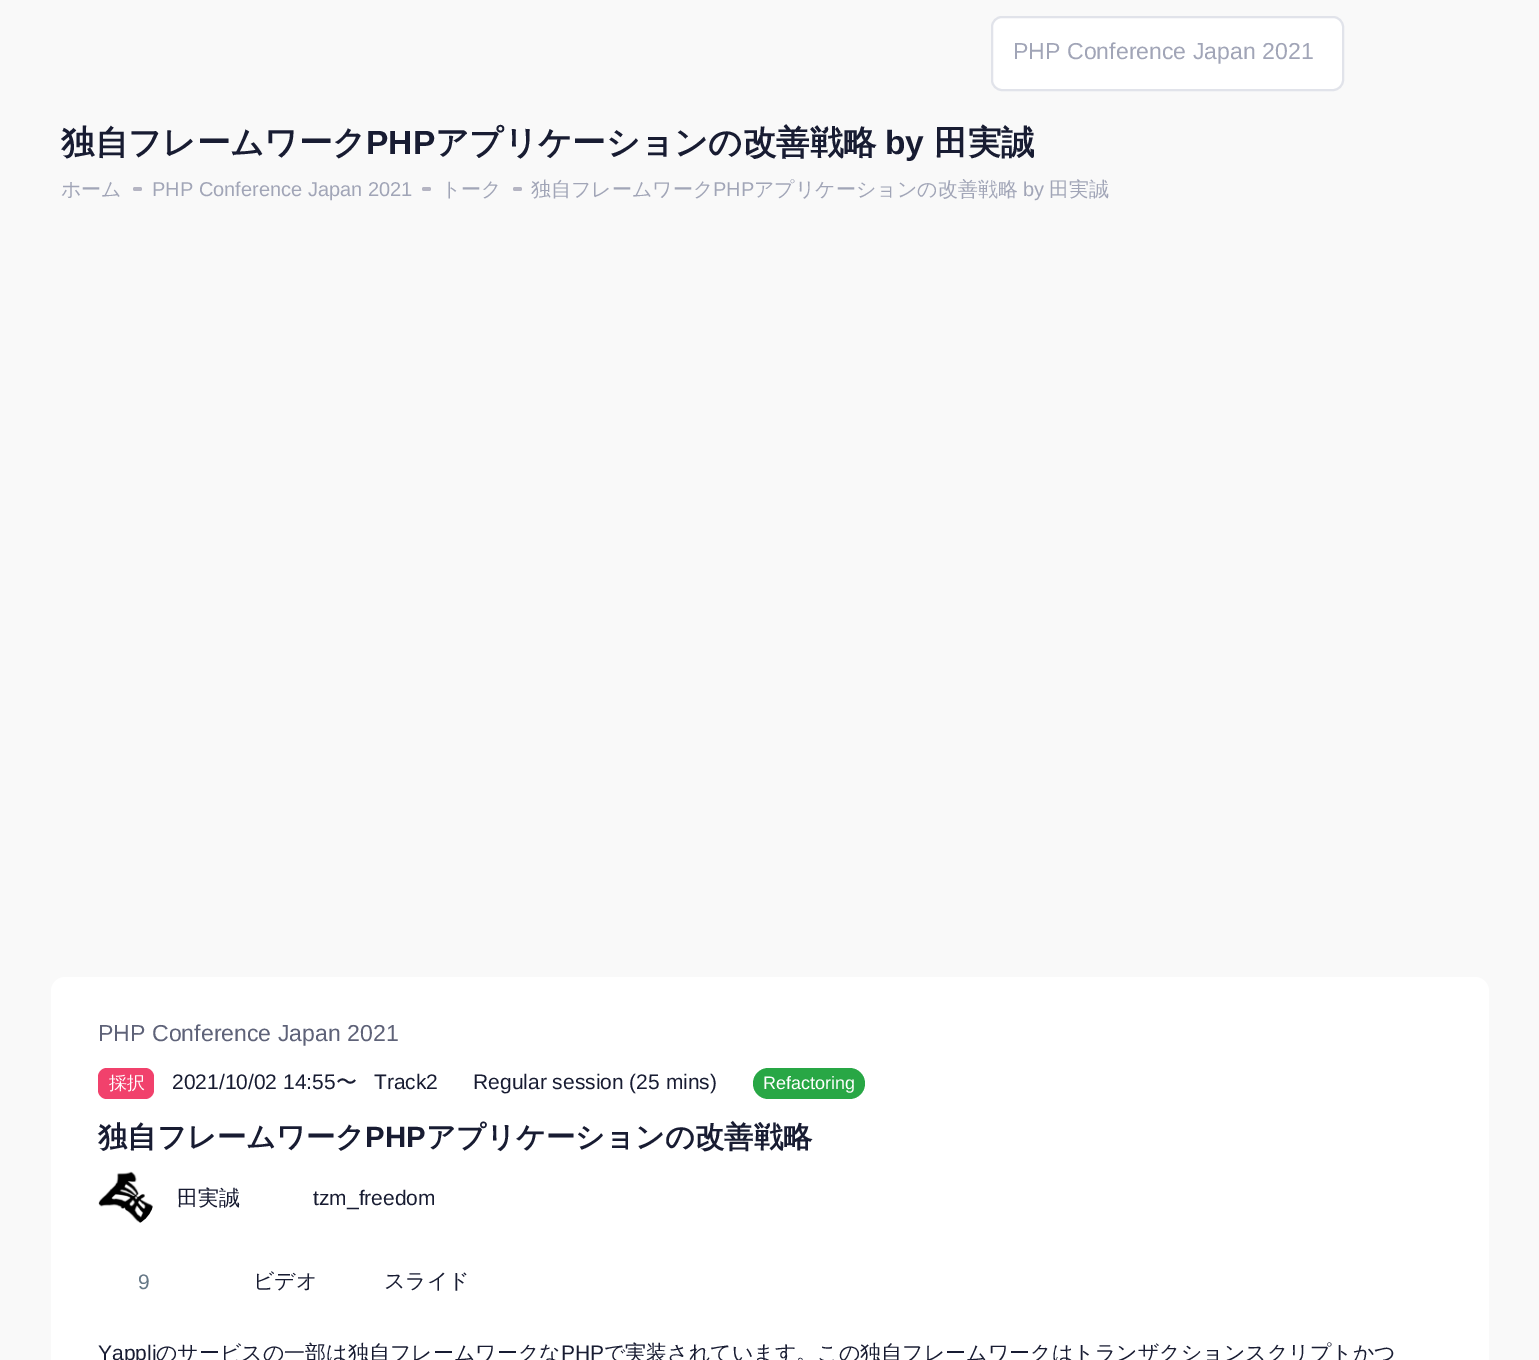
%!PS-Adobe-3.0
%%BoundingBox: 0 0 1539 1360
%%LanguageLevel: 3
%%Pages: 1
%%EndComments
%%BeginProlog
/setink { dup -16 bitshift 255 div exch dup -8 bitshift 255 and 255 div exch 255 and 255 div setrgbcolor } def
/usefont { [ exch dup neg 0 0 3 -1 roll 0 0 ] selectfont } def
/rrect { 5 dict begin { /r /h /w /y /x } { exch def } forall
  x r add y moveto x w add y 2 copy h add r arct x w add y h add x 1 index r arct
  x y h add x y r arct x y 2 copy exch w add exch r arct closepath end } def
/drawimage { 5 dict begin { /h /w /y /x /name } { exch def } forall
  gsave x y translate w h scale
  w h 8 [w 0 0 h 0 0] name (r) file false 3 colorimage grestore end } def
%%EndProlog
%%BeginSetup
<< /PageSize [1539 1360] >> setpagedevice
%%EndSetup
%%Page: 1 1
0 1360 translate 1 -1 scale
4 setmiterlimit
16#F9F9F9 setink
0 0 1539 1360 rectfill
16#FFFFFF setink
992 17 351 73 10 rrect gsave fill grestore
16#E1E3EA setink
2 setlinewidth
stroke
/LiberationSans-Regular 23.1 usefont
16#A1A5B7 setink
1013 59 moveto (PHP Conference Japan 2021) show
/WenQuanYiZenHei-Bold 33.5 usefont
16#181C32 setink
61 154 moveto (独自フレームワーク) show
/LiberationSans-Bold 33.5 usefont
366 154 moveto (PHP) show
/WenQuanYiZenHei-Bold 33.5 usefont
435 154 moveto (アプリケーションの改善戦略) show
/LiberationSans-Bold 33.5 usefont
885 154 moveto (by) show
/WenQuanYiZenHei-Bold 33.5 usefont
934 154 moveto (田実誠) show
/WenQuanYiZenHei-Medium 20 usefont
16#A1A5B7 setink
61 196 moveto (ホーム) show
16#B5B5C3 setink
133 187 9 4 2 rrect fill
/LiberationSans-Regular 20 usefont
16#A1A5B7 setink
152 196 moveto (PHP Conference Japan 2021) show
16#B5B5C3 setink
422 187 9 4 2 rrect fill
/WenQuanYiZenHei-Medium 20 usefont
16#A1A5B7 setink
441 196 moveto (トーク) show
16#B5B5C3 setink
513 187 9 4 2 rrect fill
16#A1A5B7 setink
531 196 moveto (独自フレームワーク) show
/LiberationSans-Regular 20 usefont
713 196 moveto (PHP) show
/WenQuanYiZenHei-Medium 20 usefont
754 196 moveto (アプリケーションの改善戦略) show
/LiberationSans-Regular 20 usefont
1023 196 moveto (by) show
/WenQuanYiZenHei-Medium 20 usefont
1049 196 moveto (田実誠) show
16#FFFFFF setink
51 977 1438 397 14 rrect fill
/LiberationSans-Regular 23.1 usefont
16#5E6278 setink
98 1041 moveto (PHP Conference Japan 2021) show
16#F1416C setink
98 1068 56 31 9 rrect fill
/WenQuanYiZenHei-Medium 18 usefont
16#FFFFFF setink
109 1089 moveto (採択) show
/LiberationSans-Regular 21 usefont
16#181C32 setink
172 1089 moveto (2021/10/02 14:55) show
/WenQuanYiZenHei-Medium 21 usefont
336 1089 moveto (〜) show
/LiberationSans-Regular 21 usefont
374 1089 moveto (Track2) show
473 1089 moveto (Regular session \(25 mins\)) show
16#28A745 setink
753 1068 112 31 15.5 rrect fill
/LiberationSans-Regular 18 usefont
16#FFFFFF setink
763 1089 moveto (Refactoring) show
/WenQuanYiZenHei-Bold 29.3 usefont
16#181C32 setink
98 1147 moveto (独自フレームワーク) show
/LiberationSans-Bold 29.3 usefont
365 1147 moveto (PHP) show
/WenQuanYiZenHei-Bold 29.3 usefont
426 1147 moveto (アプリケーションの改善戦略) show
(img1.raw) 98 1171 55 52 drawimage
/WenQuanYiZenHei-Medium 21 usefont
177 1205 moveto (田実誠) show
/LiberationSans-Regular 21 usefont
313 1205 moveto (tzm_freedom) show
16#657786 setink
138 1289 moveto (9) show
/WenQuanYiZenHei-Medium 21 usefont
16#181C32 setink
253 1288 moveto (ビデオ) show
384 1288 moveto (スライド) show
/LiberationSans-Regular 21 usefont
98 1360 moveto (Yappli) show
/WenQuanYiZenHei-Medium 21 usefont
156 1360 moveto (のサービスの一部は独自フレームワークな) show
/LiberationSans-Regular 21 usefont
561 1360 moveto (PHP) show
/WenQuanYiZenHei-Medium 21 usefont
604 1360 moveto (で実装されています。この独自フレームワークはトランザクションスクリプトかつ) show
showpage
%%EOF
